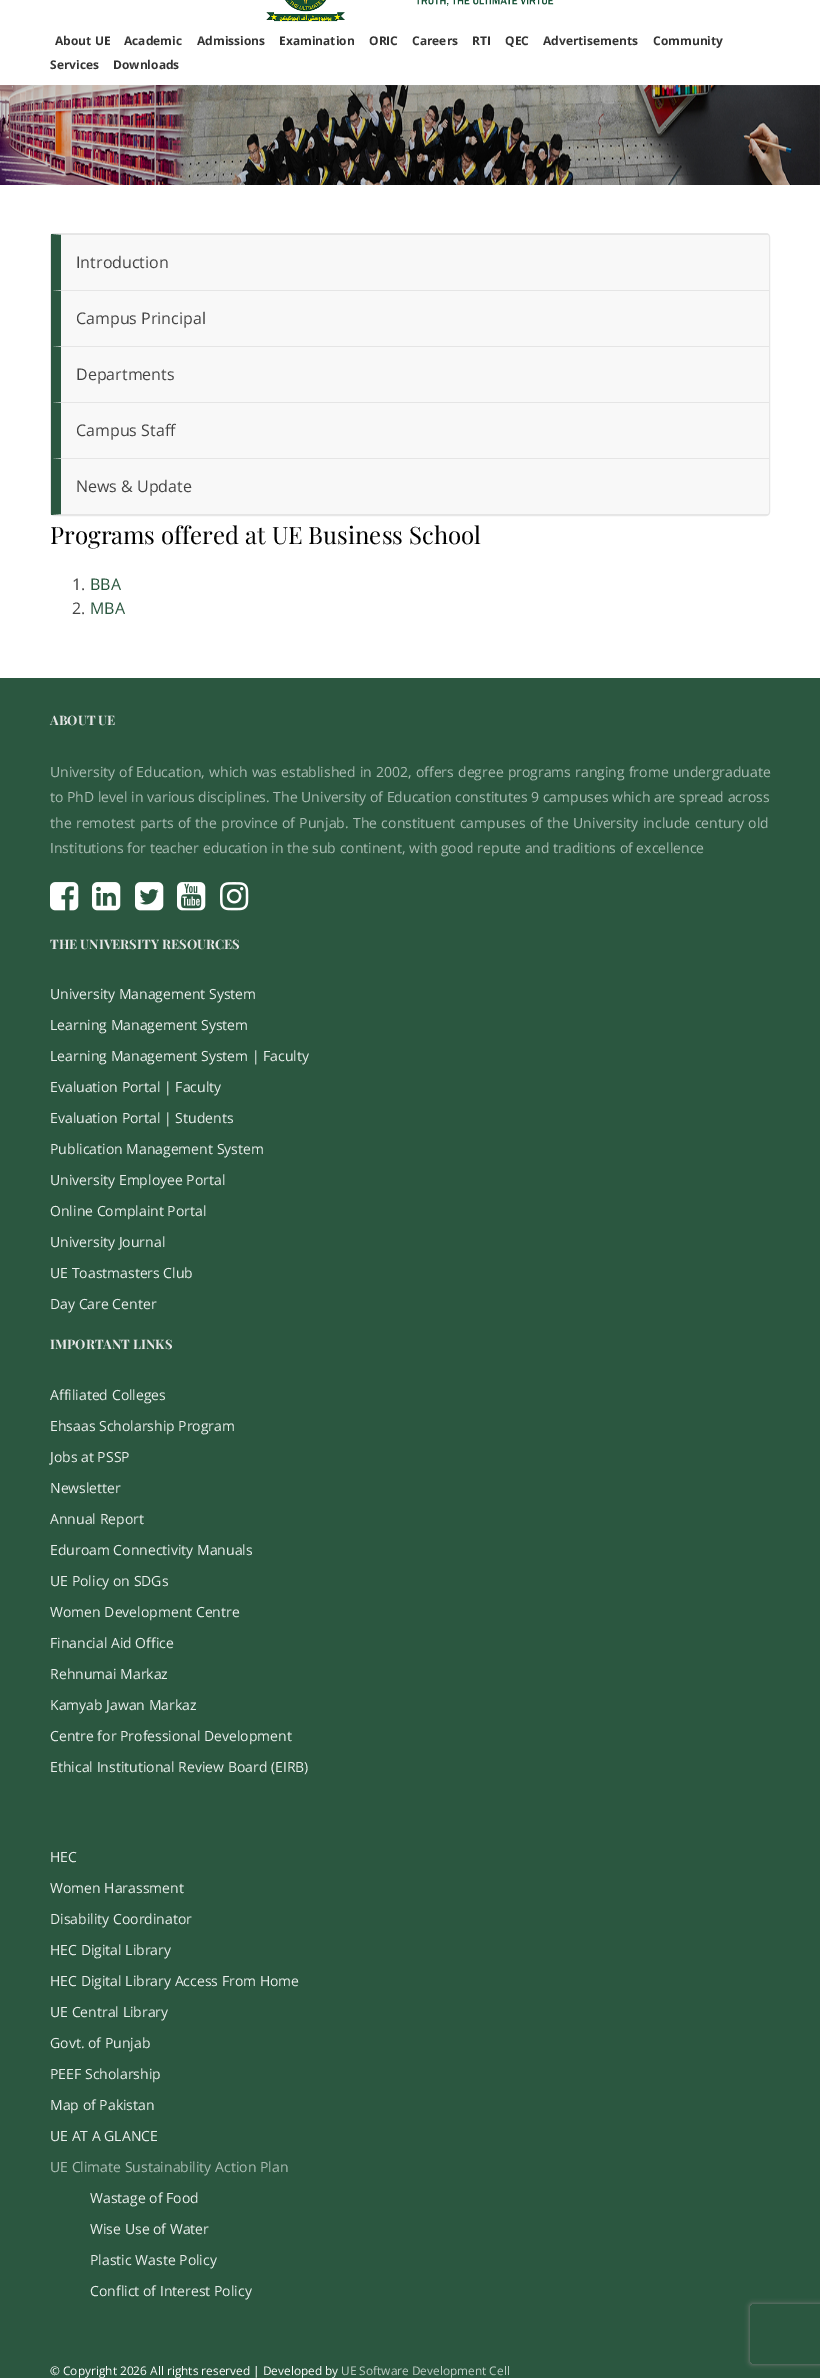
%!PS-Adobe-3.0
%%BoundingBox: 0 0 820 2378
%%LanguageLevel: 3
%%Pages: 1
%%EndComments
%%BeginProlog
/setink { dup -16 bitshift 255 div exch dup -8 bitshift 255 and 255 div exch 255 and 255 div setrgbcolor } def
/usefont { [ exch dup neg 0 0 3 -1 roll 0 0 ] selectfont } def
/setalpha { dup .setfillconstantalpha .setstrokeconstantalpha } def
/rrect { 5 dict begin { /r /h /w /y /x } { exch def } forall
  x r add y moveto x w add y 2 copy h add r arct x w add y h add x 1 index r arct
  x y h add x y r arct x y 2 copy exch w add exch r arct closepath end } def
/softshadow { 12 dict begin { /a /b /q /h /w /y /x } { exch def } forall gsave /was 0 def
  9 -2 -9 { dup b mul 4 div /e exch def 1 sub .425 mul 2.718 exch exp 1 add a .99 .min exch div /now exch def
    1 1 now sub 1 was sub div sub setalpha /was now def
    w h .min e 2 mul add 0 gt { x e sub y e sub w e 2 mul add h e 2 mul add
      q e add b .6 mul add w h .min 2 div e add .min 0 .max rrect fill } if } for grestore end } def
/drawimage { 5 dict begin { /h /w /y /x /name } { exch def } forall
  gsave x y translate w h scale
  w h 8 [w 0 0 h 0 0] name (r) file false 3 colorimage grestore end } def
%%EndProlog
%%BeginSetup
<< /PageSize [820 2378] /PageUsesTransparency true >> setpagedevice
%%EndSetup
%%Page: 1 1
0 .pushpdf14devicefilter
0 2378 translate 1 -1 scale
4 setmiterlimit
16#FFFFFF setink
0 0 820 2378 rectfill
(img1.raw) 266 0 288 22 drawimage
/OpenSans-Bold 12 usefont
16#333333 setink
[
    [(About UE) 55 45]
    [(Academic) 124 45]
    [(Admissions) 197 45]
    [(Examination) 279 45]
    [(ORIC) 369 45]
    [(Careers) 412 45]
    [(RTI) 472 45]
    [(QEC) 505 45]
    [(Advertisements) 543 45]
    [(Community) 653 45]
    [(Services) 50 69]
    [(Downloads) 113 69]
] { aload pop moveto show } forall
(img2.raw) 0 85 820 100 drawimage
16#F8F8F8 setink
50.5 233.5 719 282 3.5 rrect gsave fill grestore
16#E7E7E7 setink
stroke
16#E5E5E5 setink
51 234 moveto 769 234 lineto 769 235 lineto 61 235 lineto closepath fill
769 291 moveto 51 291 lineto 61 290 lineto 769 290 lineto closepath fill
16#2B5740 setink
51 291 moveto 51 234 lineto 61 235 lineto 61 290 lineto closepath fill
/OpenSans-Regular 16 usefont
16#444444 setink
76 268 moveto (Introduction) show
16#E5E5E5 setink
769 347 moveto 51 347 lineto 61 346 lineto 769 346 lineto closepath fill
16#2B5740 setink
51 347 moveto 51 291 lineto 61 291 lineto 61 346 lineto closepath fill
16#444444 setink
76 324 moveto (Campus Principal) show
16#E5E5E5 setink
769 403 moveto 51 403 lineto 61 402 lineto 769 402 lineto closepath fill
16#2B5740 setink
51 403 moveto 51 347 lineto 61 347 lineto 61 402 lineto closepath fill
16#444444 setink
76 380 moveto (Departments) show
16#E5E5E5 setink
769 459 moveto 51 459 lineto 61 458 lineto 769 458 lineto closepath fill
16#2B5740 setink
51 459 moveto 51 403 lineto 61 403 lineto 61 458 lineto closepath fill
16#444444 setink
76 436 moveto (Campus Staff) show
16#E5E5E5 setink
769 515 moveto 51 515 lineto 61 514 lineto 769 514 lineto closepath fill
16#2B5740 setink
51 515 moveto 51 459 lineto 61 459 lineto 61 514 lineto closepath fill
16#444444 setink
76 492 moveto (News & Update) show
/PlayfairDisplay-Regular 24 usefont
16#000000 setink
50 544 moveto (Programs offered at UE Business School) show
/OpenSans-Regular 16 usefont
16#444444 setink
72 590 moveto (1.) show
16#2B5740 setink
90 590 moveto (BBA) show
16#444444 setink
72 614 moveto (2.) show
16#2B5740 setink
90 614 moveto (MBA) show
0 678 820 1700 rectfill
/PlayfairDisplay-Bold 13 usefont
16#E6E6E6 setink
50 725 moveto (ABOUT UE) show
/OpenSans-Regular 14 usefont
16#AABCB3 setink
50 777 moveto 0.5 0 32 (University of Education, which was established in 2002, offers degree programs ranging frome undergraduate) widthshow
50 802 moveto (to PhD level in various disciplines. The University of Education constitutes 9 campuses which are spread across) show
50 828 moveto 0.75 0 32 (the remotest parts of the province of Punjab. The constituent campuses of the University include century old) widthshow
50 853 moveto (Institutions for teacher education in the sub continent, with good repute and traditions of excellence) show
(img3.raw) 50 882 29 29 drawimage
(img4.raw) 92 882 29 29 drawimage
(img5.raw) 135 882 29 29 drawimage
(img6.raw) 177 882 29 29 drawimage
(img7.raw) 220 882 29 29 drawimage
/PlayfairDisplay-Bold 13 usefont
16#E6E6E6 setink
50 949 moveto (THE UNIVERSITY RESOURCES) show
/OpenSans-Regular 14 usefont
16#EAEEEC setink
[
    [(University Management System) 50 999]
    [(Learning Management System) 50 1030]
    [(Learning Management System | Faculty) 50 1061]
    [(Evaluation Portal | Faculty) 50 1092]
    [(Evaluation Portal | Students) 50 1123]
    [(Publication Management System) 50 1154]
    [(University Employee Portal) 50 1185]
    [(Online Complaint Portal) 50 1216]
    [(University Journal) 50 1247]
    [(UE Toastmasters Club) 50 1278]
    [(Day Care Center) 50 1309]
] { aload pop moveto show } forall
/PlayfairDisplay-Bold 13 usefont
16#E6E6E6 setink
50 1349 moveto (IMPORTANT LINKS) show
/OpenSans-Regular 14 usefont
16#EAEEEC setink
[
    [(Affiliated Colleges) 50 1400]
    [(Ehsaas Scholarship Program) 50 1431]
    [(Jobs at PSSP) 50 1462]
    [(Newsletter) 50 1493]
    [(Annual Report) 50 1524]
    [(Eduroam Connectivity Manuals) 50 1555]
    [(UE Policy on SDGs) 50 1586]
    [(Women Development Centre) 50 1617]
    [(Financial Aid Office) 50 1648]
    [(Rehnumai Markaz) 50 1679]
    [(Kamyab Jawan Markaz) 50 1710]
    [(Centre for Professional Development) 50 1741]
    [(Ethical Institutional Review Board \(EIRB\)) 50 1772]
    [(HEC) 50 1862]
    [(Women Harassment) 50 1893]
    [(Disability Coordinator) 50 1924]
    [(HEC Digital Library) 50 1955]
    [(HEC Digital Library Access From Home) 50 1986]
    [(UE Central Library) 50 2017]
    [(Govt. of Punjab) 50 2048]
    [(PEEF Scholarship) 50 2079]
    [(Map of Pakistan) 50 2110]
    [(UE AT A GLANCE) 50 2141]
] { aload pop moveto show } forall
16#AABCB3 setink
50 2172 moveto (UE Climate Sustainability Action Plan) show
16#EAEEEC setink
[
    [(Wastage of Food) 90 2203]
    [(Wise Use of Water) 90 2234]
    [(Plastic Waste Policy) 90 2265]
    [(Conflict of Interest Policy) 90 2296]
] { aload pop moveto show } forall
/OpenSans-Regular 11.9 usefont
16#FFFFFF setink
50 2375 moveto (© Copyright 2026 All rights reserved | Developed by) show
16#BFCDC6 setink
341 2375 moveto (UE Software Development Cell) show
gsave
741 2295 moveto 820 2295 lineto 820 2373 lineto 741 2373 lineto closepath 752 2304 moveto 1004 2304 lineto 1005 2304 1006 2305 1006 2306 curveto 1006 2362 lineto 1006 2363 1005 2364 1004 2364 curveto 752 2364 lineto 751 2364 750 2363 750 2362 curveto 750 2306 lineto 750 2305 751 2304 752 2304 curveto closepath eoclip newpath
16#808080 setink
750 2304 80 60 2 2.5 1 softshadow
grestore
.poppdf14devicefilter showpage
%%EOF
